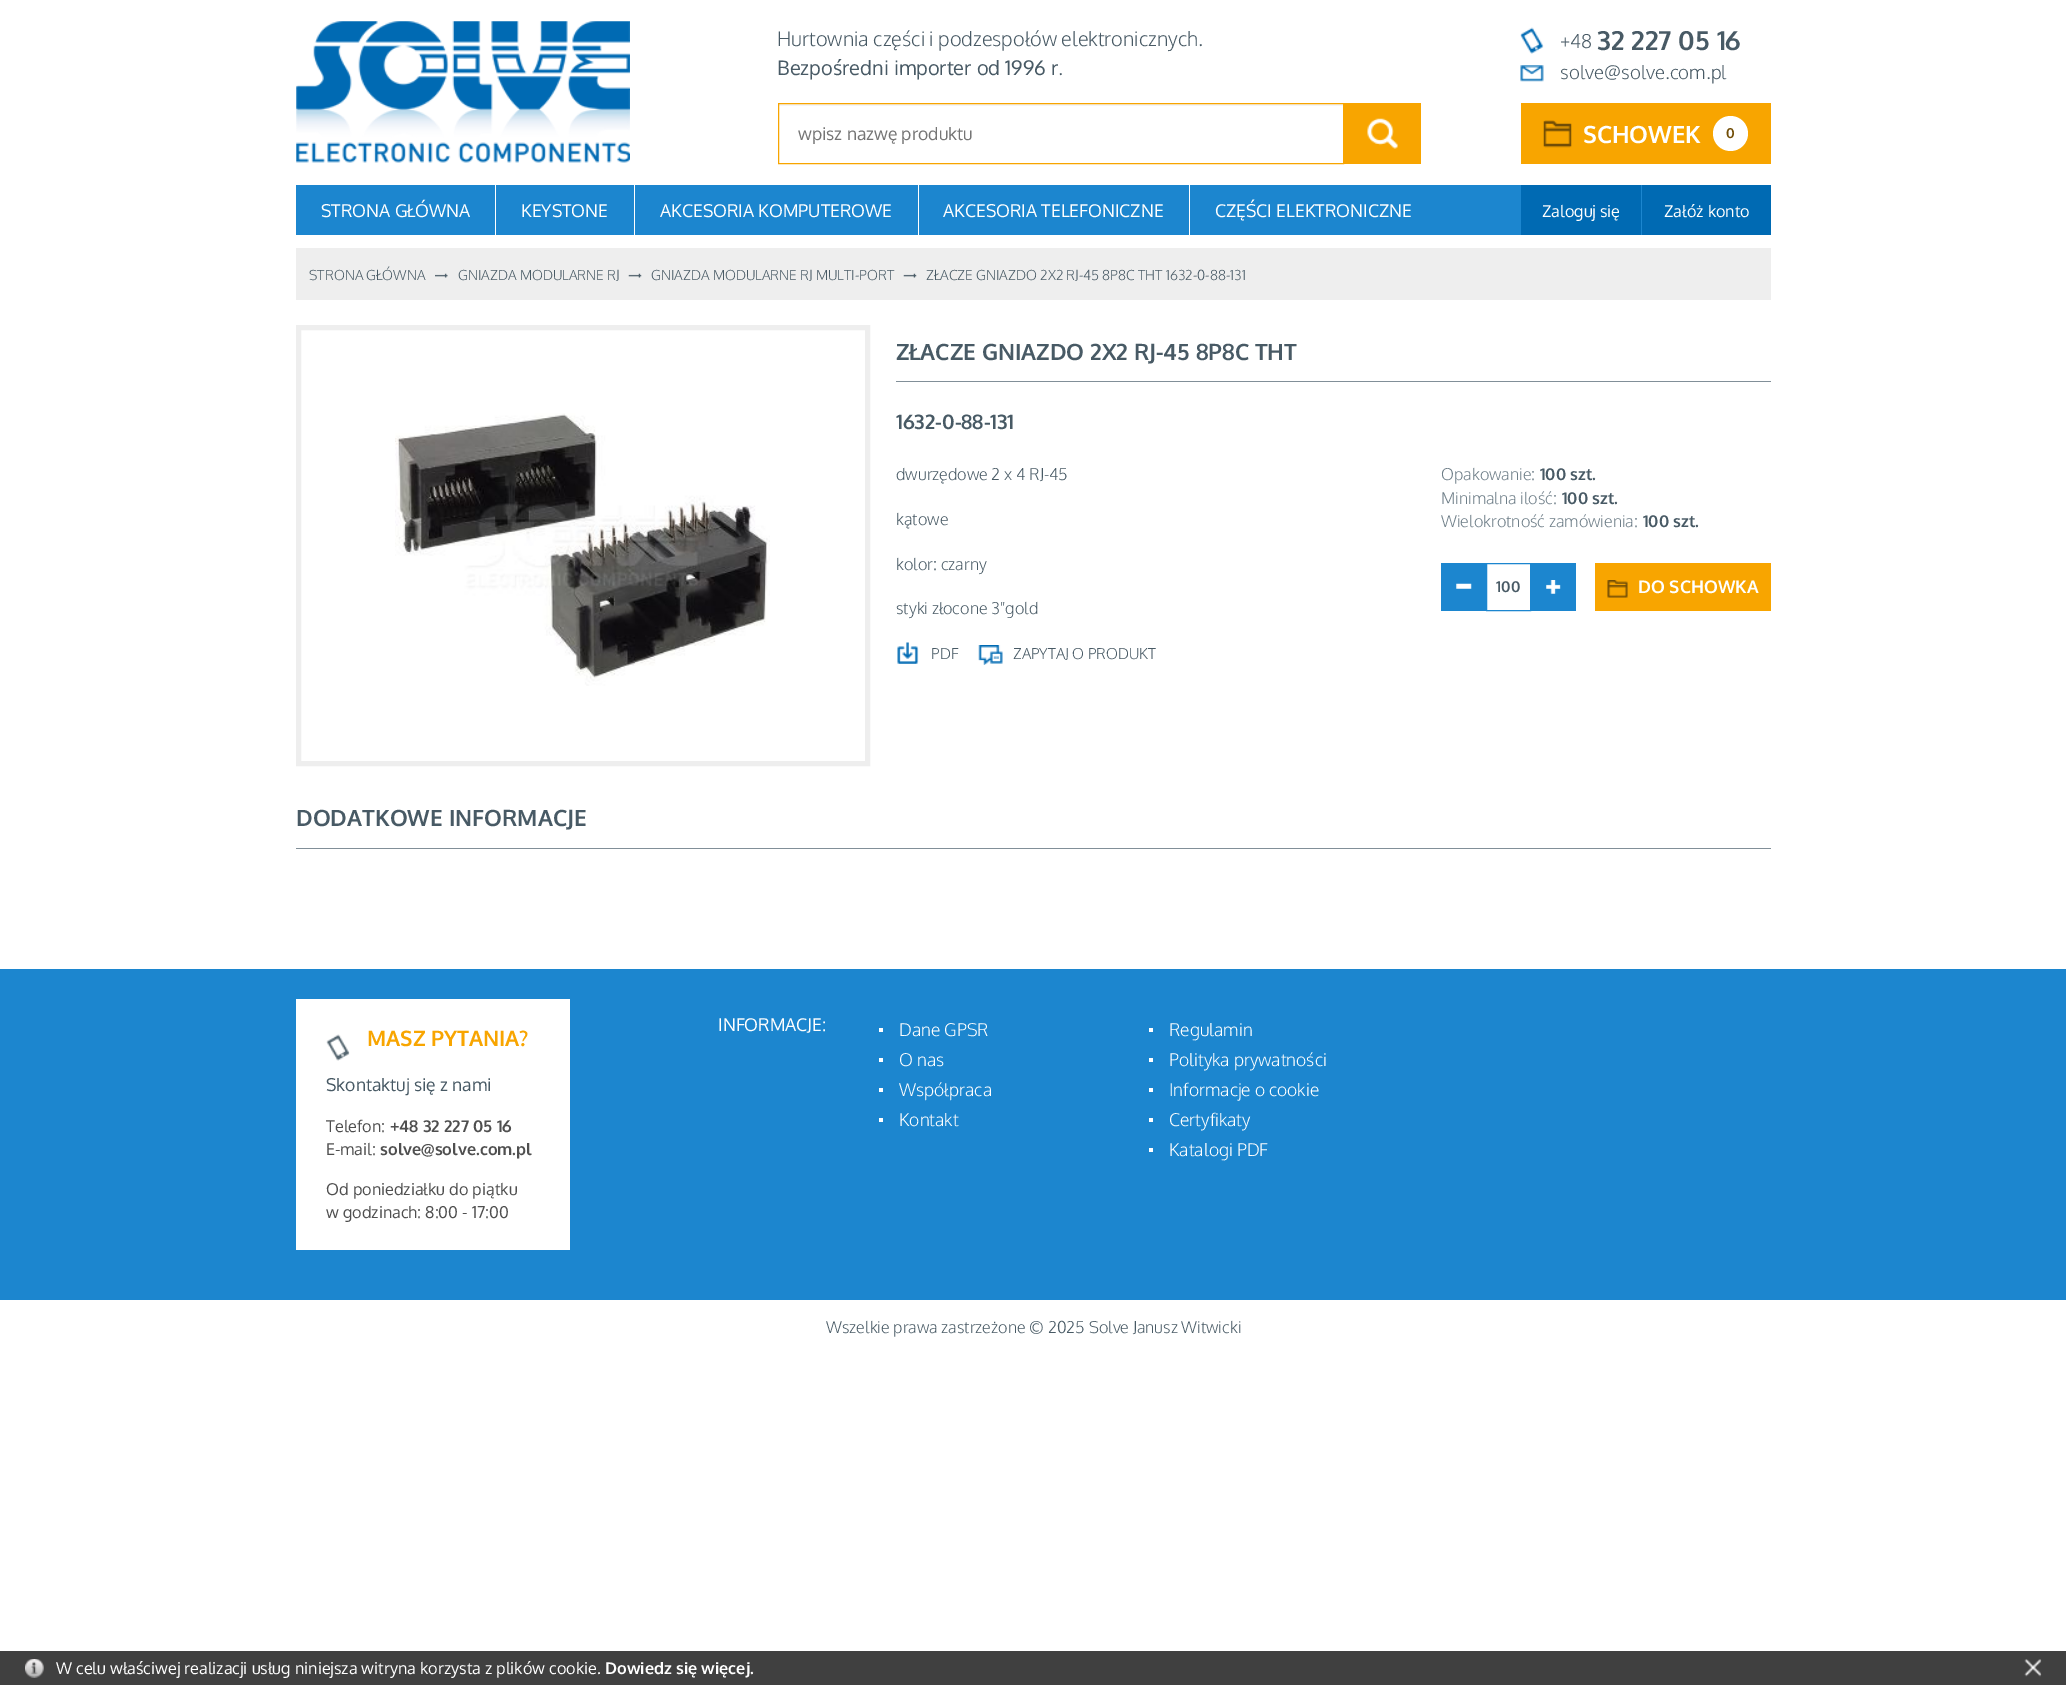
%!PS-Adobe-3.0
%%BoundingBox: 0 0 2066 1685
%%LanguageLevel: 3
%%Pages: 1
%%EndComments
%%BeginProlog
/setink { dup -16 bitshift 255 div exch dup -8 bitshift 255 and 255 div exch 255 and 255 div setrgbcolor } def
/usefont { [ exch dup neg 0 0 3 -1 roll 0 0 ] selectfont } def
/disc { newpath 0 360 arc closepath } def
/drawimage { 5 dict begin { /h /w /y /x /name } { exch def } forall
  gsave x y translate w h scale
  w h 8 [w 0 0 h 0 0] name (r) file false 3 colorimage grestore end } def
%%EndProlog
%%BeginSetup
<< /PageSize [2066 1685] >> setpagedevice
%%EndSetup
%%Page: 1 1
0 1685 translate 1 -1 scale
4 setmiterlimit
16#FFFFFF setink
0 0 2066 1685 rectfill
(img1.raw) 296 21 334 142 drawimage
/Oxygen-Light 20 usefont
16#485A65 setink
777 46 moveto (Hurtownia części i podzespołów elektronicznych.) show
/Oxygen-Regular 20 usefont
777 75 moveto (Bezpośredni importer od 1996 r) show
/Oxygen-Light 20 usefont
1058 75 moveto (.) show
(img2.raw) 1520 27 24 27 drawimage
/Oxygen-Light 19 usefont
1560 48 moveto (+48) show
/Oxygen-Bold 26.25 usefont
1597 50 moveto (32 227 05 16) show
(img3.raw) 1520 65 24 17 drawimage
/Oxygen-Light 18.75 usefont
1560 79 moveto (solve@solve.com.pl) show
(img4.raw) 779 104 564 2 drawimage
16#F8A500 setink
778.5 103.5 565 60 rectstroke
/Oxygen-Regular 17.5 usefont
16#757575 setink
798 140 moveto (wpisz nazwę produktu) show
16#F8A500 setink
1344 103 77 61 rectfill
(img5.raw) 1367 118 31 31 drawimage
1521 103 250 61 rectfill
(img6.raw) 1543 120 29 28 drawimage
/Oxygen-Bold 23.75 usefont
16#FFFFFF setink
1583 143 moveto (SCHOWEK) show
1730.5 133.5 17.5 disc fill
/Oxygen-Bold 13.75 usefont
16#714D06 setink
1726 138 moveto (0) show
16#1C86CF setink
296 185 1225 50 rectfill
16#FFFFFF setink
495 185 1 50 rectfill
/Oxygen-Regular 17.5 usefont
321 217 moveto (STRONA GŁÓWNA) show
634 185 1 50 rectfill
521 217 moveto (KEYSTONE) show
918 185 1 50 rectfill
660 217 moveto (AKCESORIA KOMPUTEROWE) show
1189 185 1 50 rectfill
943 217 moveto (AKCESORIA TELEFONICZNE) show
1215 217 moveto (CZĘŚCI ELEKTRONICZNE) show
16#006AB3 setink
1521 185 250 50 rectfill
16#1C86CF setink
1641 185 1 50 rectfill
/Oxygen-Regular 16.25 usefont
16#FFFFFF setink
1542 217 moveto (Zaloguj się) show
1664 217 moveto (Załóż konto) show
16#EEEEEE setink
296 248 1475 52 rectfill
/Oxygen-Light 13.75 usefont
16#485A65 setink
309 280 moveto (STRONA GŁÓWNA) show
(img7.raw) 435 273 13 5 drawimage
458 280 moveto (GNIAZDA MODULARNE RJ) show
(img8.raw) 628 273 14 5 drawimage
651 280 moveto (GNIAZDA MODULARNE RJ MULTI-PORT) show
(img8.raw) 903 273 14 5 drawimage
926 280 moveto (ZŁACZE GNIAZDO 2X2 RJ-45 8P8C THT 1632-0-88-131) show
16#EEEEEE setink
5 setlinewidth
298.5 327.5 569 436 rectstroke
(img9.raw) 395 413 375 273 drawimage
16#818F98 setink
896 381 875 1 rectfill
/Oxygen-Bold 22.5 usefont
16#485A65 setink
896 360 moveto (ZŁACZE GNIAZDO 2X2 RJ-45 8P8C THT) show
/Oxygen-Bold 20 usefont
896 429 moveto (1632-0-88-131) show
/Oxygen-Light 16.25 usefont
[
    [(dwurzędowe 2 x 4 RJ-45) 896 480]
    [(kątowe) 896 525]
    [(kolor: czarny) 896 570]
    [(styki złocone 3"gold) 896 614]
] { aload pop moveto show } forall
16#6E7E88 setink
1441 480 moveto (Opakowanie:) show
/Oxygen-Bold 16.25 usefont
16#485A65 setink
1540 480 moveto (100 szt.) show
/Oxygen-Light 16.25 usefont
16#6E7E88 setink
1441 504 moveto (Minimalna ilość:) show
/Oxygen-Bold 16.25 usefont
16#485A65 setink
1562 504 moveto (100 szt.) show
/Oxygen-Light 16.25 usefont
16#6E7E88 setink
1441 527 moveto (Wielokrotność zamówienia:) show
/Oxygen-Bold 16.25 usefont
16#485A65 setink
1643 527 moveto (100 szt.) show
16#1C86CF setink
1441 563 45 48 rectfill
(img10.raw) 1456 583 16 6 drawimage
1 setlinewidth
1486.5 563.5 44 47 rectstroke
/Oxygen-Bold 15 usefont
16#485A65 setink
1496 592 moveto (100) show
16#1C86CF setink
1531 563 45 48 rectfill
(img11.raw) 1546 580 15 14 drawimage
16#F8A500 setink
1595 563 176 48 rectfill
(img12.raw) 1607 580 21 18 drawimage
/Oxygen-Bold 17.5 usefont
16#FFFFFF setink
1638 593 moveto (DO SCHOWKA) show
(img13.raw) 897 642 22 22 drawimage
/Oxygen-Light 15 usefont
16#485A65 setink
931 659 moveto (PDF) show
(img14.raw) 978 645 25 20 drawimage
1013 659 moveto (ZAPYTAJ O PRODUKT) show
16#818F98 setink
296 848 1475 1 rectfill
/Oxygen-Bold 22.5 usefont
16#485A65 setink
296 826 moveto (DODATKOWE INFORMACJE) show
16#1C86CF setink
0 969 2066 331 rectfill
16#FFFFFF setink
296 999 274 251 rectfill
(img15.raw) 326 1034 24 27 drawimage
/Oxygen-Bold 21.25 usefont
16#F8A500 setink
367 1046 moveto (MASZ PYTANIA?) show
/Oxygen-Regular 17.5 usefont
16#485A65 setink
326 1091 moveto (Skontaktuj się z nami) show
/Oxygen-Regular 16.25 usefont
16#4F4F4F setink
326 1132 moveto (Telefon:) show
/Oxygen-Bold 16.25 usefont
390 1132 moveto (+48 32 227 05 16) show
/Oxygen-Regular 16.25 usefont
326 1155 moveto (E-mail:) show
/Oxygen-Bold 16.25 usefont
380 1155 moveto (solve@solve.com.pl) show
/Oxygen-Regular 16.25 usefont
326 1195 moveto (Od poniedziałku do piątku) show
326 1218 moveto (w godzinach: 8:00 - 17:00) show
/Oxygen-Regular 17.5 usefont
16#FFFFFF setink
718 1031 moveto (INFORMACJE:) show
879 1028 4 4 rectfill
/Oxygen-Light 17.5 usefont
899 1036 moveto (Dane GPSR) show
879 1058 4 4 rectfill
899 1066 moveto (O nas) show
879 1088 4 4 rectfill
899 1096 moveto (Współpraca) show
879 1118 4 4 rectfill
899 1126 moveto (Kontakt) show
1149 1028 4 4 rectfill
1169 1036 moveto (Regulamin) show
1149 1058 4 4 rectfill
1169 1066 moveto (Polityka prywatności) show
1149 1088 4 4 rectfill
1169 1096 moveto (Informacje o cookie) show
1149 1118 4 4 rectfill
1169 1126 moveto (Certyfikaty) show
1149 1148 4 4 rectfill
1169 1156 moveto (Katalogi PDF) show
/Oxygen-Light 16.25 usefont
16#485A65 setink
826 1333 moveto (Wszelkie prawa zastrzeżone © 2025 Solve Janusz Witwicki) show
16#404040 setink
0 1651 2066 34 rectfill
(img16.raw) 25 1659 19 19 drawimage
/Oxygen-Regular 16.25 usefont
16#FFFFFF setink
56 1674 moveto (W celu właściwej realizacji usług niniejsza witryna korzysta z plików cookie.) show
/Oxygen-Bold 16.25 usefont
605 1674 moveto (Dowiedz się więcej.) show
(img17.raw) 2024 1659 18 18 drawimage
showpage
%%EOF
